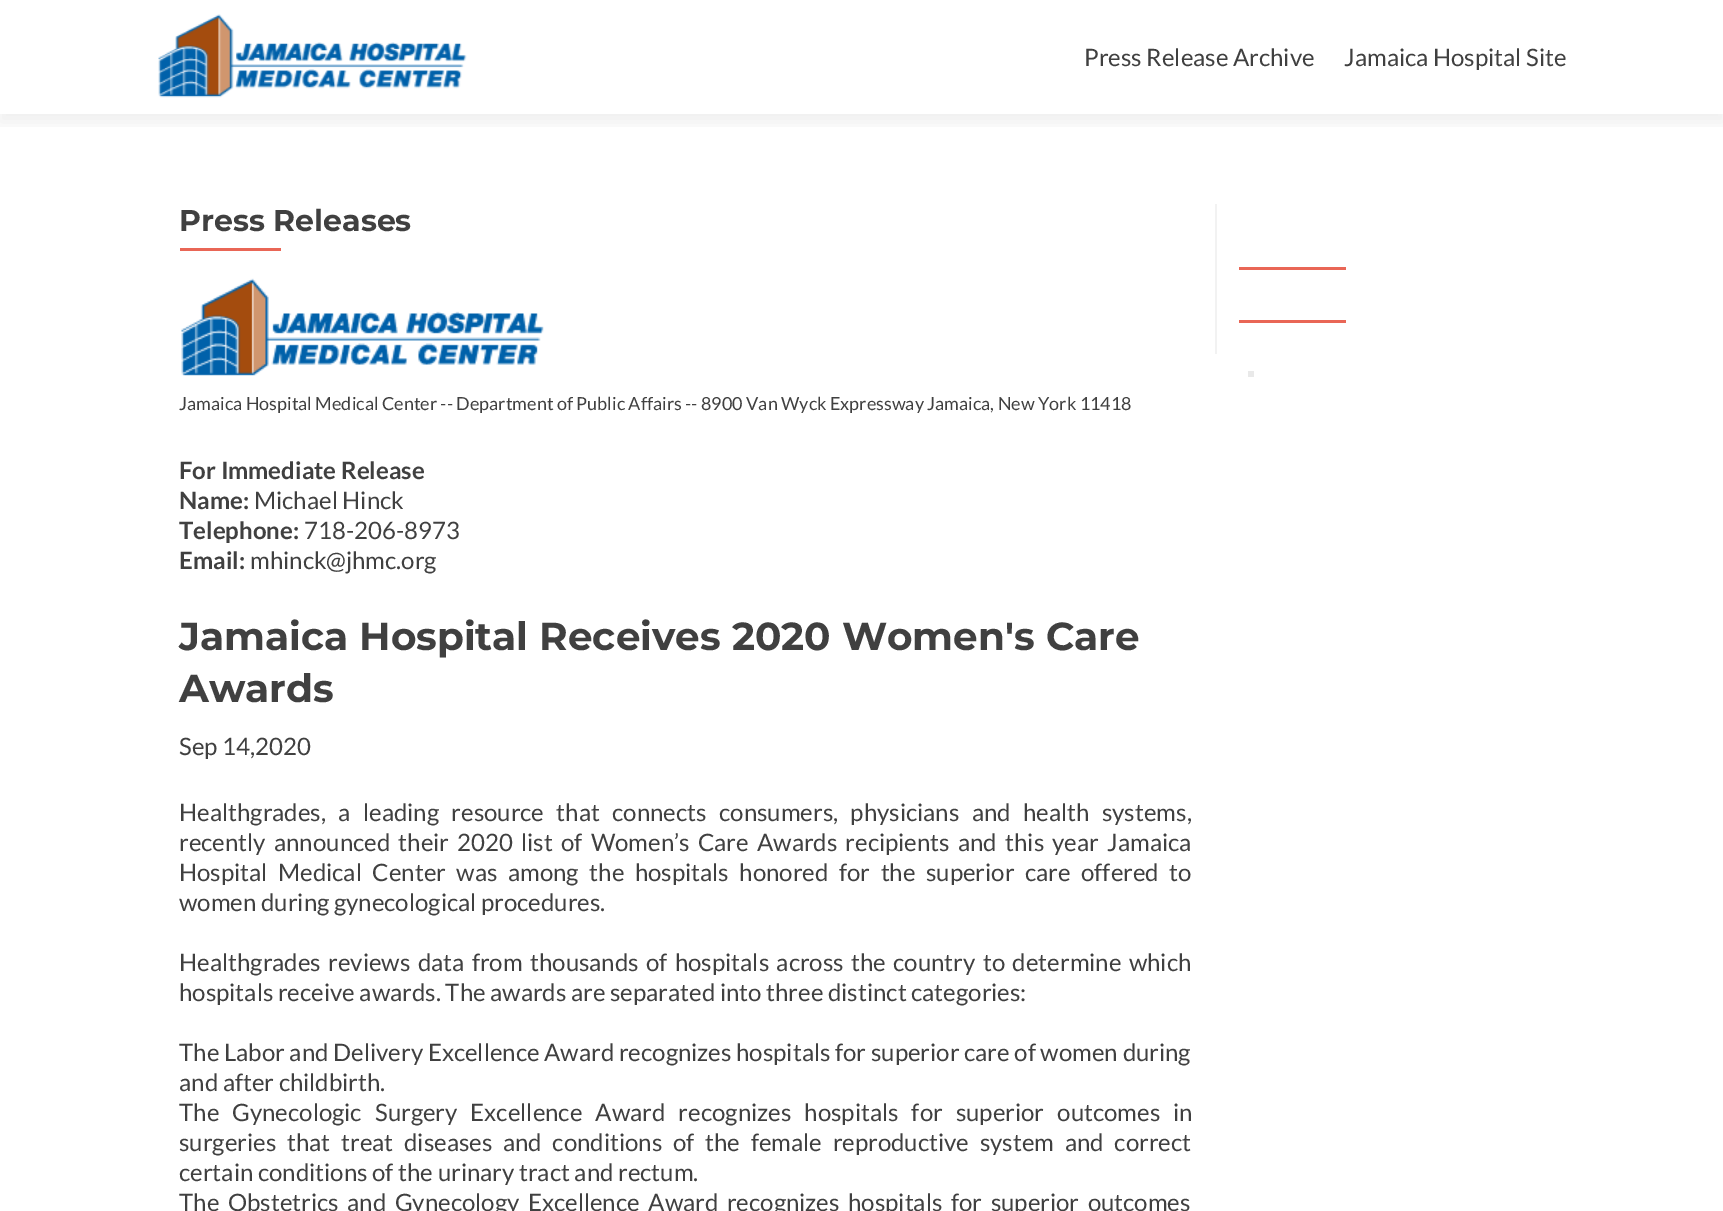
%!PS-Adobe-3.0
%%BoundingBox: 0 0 1723 1211
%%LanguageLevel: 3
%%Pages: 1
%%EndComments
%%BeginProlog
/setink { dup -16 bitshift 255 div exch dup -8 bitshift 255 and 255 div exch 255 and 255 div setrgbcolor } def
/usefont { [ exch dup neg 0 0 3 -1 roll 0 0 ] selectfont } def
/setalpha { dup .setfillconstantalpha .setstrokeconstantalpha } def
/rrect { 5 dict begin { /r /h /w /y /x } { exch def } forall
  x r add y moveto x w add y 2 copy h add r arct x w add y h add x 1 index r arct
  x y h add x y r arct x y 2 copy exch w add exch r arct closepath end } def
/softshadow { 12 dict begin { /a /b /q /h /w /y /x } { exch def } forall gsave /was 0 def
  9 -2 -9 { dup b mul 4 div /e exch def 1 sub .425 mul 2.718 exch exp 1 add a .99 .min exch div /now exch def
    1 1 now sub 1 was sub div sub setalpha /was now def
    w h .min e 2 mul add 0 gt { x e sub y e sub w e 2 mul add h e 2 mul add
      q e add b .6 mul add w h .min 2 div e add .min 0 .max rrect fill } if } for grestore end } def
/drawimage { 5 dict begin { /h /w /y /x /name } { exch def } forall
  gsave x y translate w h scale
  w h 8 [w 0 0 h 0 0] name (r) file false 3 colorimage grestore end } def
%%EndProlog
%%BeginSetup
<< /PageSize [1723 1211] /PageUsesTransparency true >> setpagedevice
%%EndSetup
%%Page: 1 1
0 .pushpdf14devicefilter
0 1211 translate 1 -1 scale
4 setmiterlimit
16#FFFFFF setink
0 0 1723 1211 rectfill
gsave
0 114 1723 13 rectclip
16#323232 setink
0 8 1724 114 0 8 0.08 softshadow
grestore
(img1.raw) 158 14 309 84 drawimage
/Lato-Regular 24 usefont
16#404040 setink
1084 66 moveto (Press Release Archive) show
1344 66 moveto (Jamaica Hospital Site) show
/Montserrat-Bold 30 usefont
179 231 moveto (Press Releases) show
16#E96656 setink
180 248 101 3 rectfill
(img2.raw) 181 278 363 98 drawimage
/Lato-Regular 18 usefont
16#404040 setink
179 410 moveto (Jamaica Hospital Medical Center -- Department of Public Affairs -- 8900 Van Wyck Expressway Jamaica, New York 11418) show
/Lato-Bold 24 usefont
179 479 moveto (For Immediate Release) show
179 509 moveto (Name:) show
/Lato-Regular 24 usefont
254 509 moveto (Michael Hinck) show
/Lato-Bold 24 usefont
179 539 moveto (Telephone:) show
/Lato-Regular 24 usefont
304 539 moveto (718-206-8973) show
/Lato-Bold 24 usefont
179 569 moveto (Email:) show
/Lato-Regular 24 usefont
250 569 moveto (mhinck@jhmc.org) show
/Montserrat-Bold 39 usefont
179 650 moveto (Jamaica Hospital Receives 2020 Women's Care) show
179 702 moveto (Awards) show
/Lato-Regular 24 usefont
179 755 moveto (Sep 14,2020) show
179 821 moveto 7.75 0 32 (Healthgrades, a leading resource that connects consumers, physicians and health systems,) widthshow
179 851 moveto 3.6 0 32 (recently announced their 2020 list of Women’s Care Awards recipients and this year Jamaica) widthshow
179 881 moveto 5.9 0 32 (Hospital Medical Center was among the hospitals honored for the superior care offered to) widthshow
179 911 moveto (women during gynecological procedures.) show
179 971 moveto 2.75 0 32 (Healthgrades reviews data from thousands of hospitals across the country to determine which) widthshow
179 1001 moveto (hospitals receive awards. The awards are separated into three distinct categories:) show
179 1061 moveto 0.1 0 32 (The Labor and Delivery Excellence Award recognizes hospitals for superior care of women during) widthshow
179 1091 moveto (and after childbirth.) show
179 1121 moveto 8.5 0 32 (The Gynecologic Surgery Excellence Award recognizes hospitals for superior outcomes in) widthshow
179 1151 moveto 6.1 0 32 (surgeries that treat diseases and conditions of the female reproductive system and correct) widthshow
179 1181 moveto (certain conditions of the urinary tract and rectum.) show
179 1211 moveto 4 0 32 (The Obstetrics and Gynecology Excellence Award recognizes hospitals for superior outcomes) widthshow
[
    [1215 204 2 150 16#F2F2F2]
    [1239 267 107 3 16#E96656]
    [1239 320 107 3 16#E96656]
    [1248 371 6 6 16#E9E9E9]
] { aload pop setink rectfill } forall
.poppdf14devicefilter showpage
%%EOF
